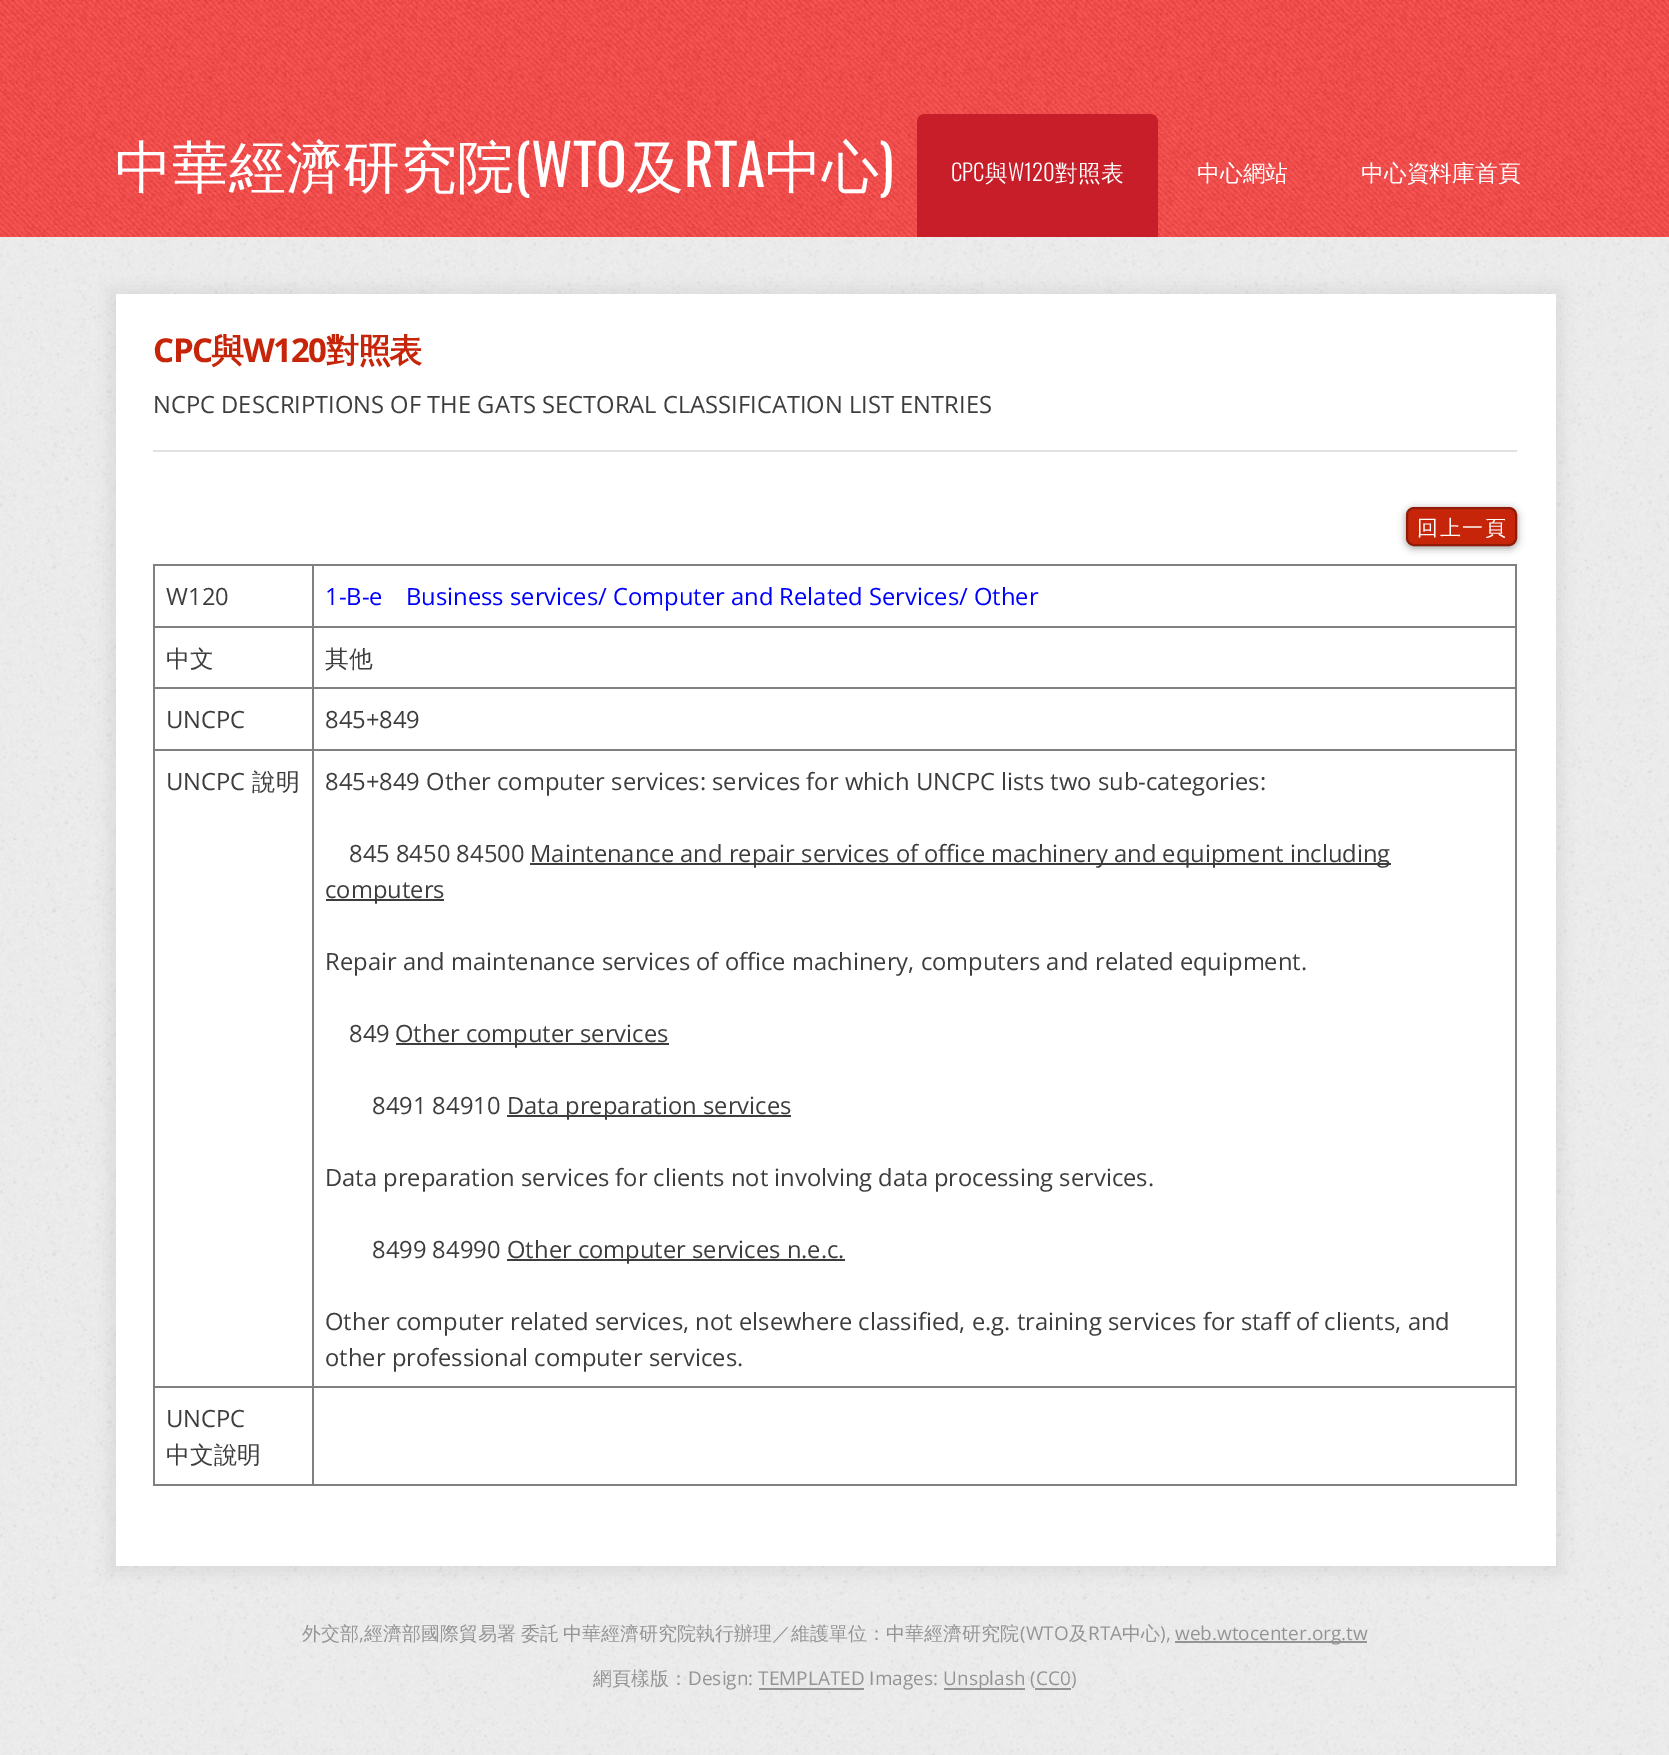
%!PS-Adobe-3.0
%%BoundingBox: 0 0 1669 1755
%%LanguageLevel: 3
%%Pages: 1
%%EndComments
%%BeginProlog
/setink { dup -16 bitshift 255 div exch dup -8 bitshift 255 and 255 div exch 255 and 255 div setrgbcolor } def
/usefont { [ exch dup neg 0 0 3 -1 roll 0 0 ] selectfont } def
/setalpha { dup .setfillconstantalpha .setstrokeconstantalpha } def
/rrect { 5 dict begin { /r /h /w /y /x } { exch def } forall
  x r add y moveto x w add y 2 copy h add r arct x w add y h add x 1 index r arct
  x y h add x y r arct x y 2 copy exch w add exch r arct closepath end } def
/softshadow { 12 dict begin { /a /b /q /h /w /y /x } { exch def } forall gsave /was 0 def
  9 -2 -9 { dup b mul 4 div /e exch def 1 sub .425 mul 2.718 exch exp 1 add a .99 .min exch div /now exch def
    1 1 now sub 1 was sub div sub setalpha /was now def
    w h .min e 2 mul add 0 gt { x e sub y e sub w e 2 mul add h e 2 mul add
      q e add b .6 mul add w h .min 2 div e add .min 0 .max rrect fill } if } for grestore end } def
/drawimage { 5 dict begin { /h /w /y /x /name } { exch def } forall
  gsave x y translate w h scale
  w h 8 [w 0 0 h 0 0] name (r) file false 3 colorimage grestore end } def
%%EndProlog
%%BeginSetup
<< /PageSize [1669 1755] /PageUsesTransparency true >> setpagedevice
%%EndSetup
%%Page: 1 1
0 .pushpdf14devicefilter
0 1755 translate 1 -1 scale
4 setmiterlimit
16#FFFFFF setink
0 0 1669 1755 rectfill
(img1.raw) 0 237 1669 1518 drawimage
(img2.raw) 0 0 1669 237 drawimage
/WenQuanYiZenHei-Medium 57 usefont
115 187 moveto (中華經濟研究院) show
/Oswald-Regular 57 usefont
514 187 moveto (\(WTO) show
/WenQuanYiZenHei-Medium 57 usefont
627 187 moveto (及) show
/Oswald-Regular 57 usefont
684 187 moveto (RTA) show
/WenQuanYiZenHei-Medium 57 usefont
765 187 moveto (中心) show
/Oswald-Regular 57 usefont
879 187 moveto (\)) show
16#C71E29 setink
925 114 moveto 1150 114 lineto 1154.5 114 1158 117.5 1158 122 curveto 1158 237 lineto 917 237 lineto 917 122 lineto 917 117.5 920.5 114 925 114 curveto closepath fill
/Oswald-Light 22.75 usefont
16#FFFFFF setink
951 181 moveto (CPC) show
/WenQuanYiZenHei-Medium 22.75 usefont
985 181 moveto (與) show
/Oswald-Light 22.75 usefont
1008 181 moveto (W120) show
/WenQuanYiZenHei-Medium 22.75 usefont
[
    [(對照表) 1055 181]
    [(中心網站) 1197 181]
    [(中心資料庫首頁) 1361 181]
] { aload pop moveto show } forall
16#000000 setink
108 287 1455 1287 0 7.5 0.05 softshadow
16#FFFFFF setink
116 294 1440 1272 rectfill
/OpenSans-Bold 33 usefont
16#C6250A setink
153 362 moveto -1.5 0 (CPC) ashow
/WenQuanYiZenHei-Bold 33 usefont
211 362 moveto -1.5 0 (與) ashow
/OpenSans-Bold 33 usefont
243 362 moveto -1.5 0 (W120) ashow
/WenQuanYiZenHei-Bold 33 usefont
326 362 moveto -1.5 0 (對照表) ashow
16#E2E2E2 setink
153 450 1364 2 rectfill
/OpenSans-Regular 23.75 usefont
16#3D3D3D setink
153 413 moveto (NCPC DESCRIPTIONS OF THE GATS SECTORAL CLASSIFICATION LIST ENTRIES) show
16#000000 setink
1406 509 111 39 8 4 0.4 softshadow
16#C6250A setink
1407 508 109 37 7 rrect gsave fill grestore
16#911B07 setink
2 setlinewidth
stroke
/WenQuanYiZenHei-Medium 21 usefont
16#FFFFFF setink
1417 535 moveto 1.5 0 (回上一頁) ashow
[
    [153 564 1364 2 16#808080]
    [1515 564 2 921 16#808080]
    [153 1484 1364 2 16#808080]
    [153 564 2 921 16#808080]
] { aload pop setink rectfill } forall
/OpenSans-Regular 23.75 usefont
16#3D3D3D setink
166 605 moveto (W120) show
16#0000FF setink
325 605 moveto (1-B-e) show
406 605 moveto (Business services/ Computer and Related Services/ Other) show
16#808080 setink
153 626 1364 2 rectfill
/WenQuanYiZenHei-Medium 23.75 usefont
16#3D3D3D setink
166 667 moveto (中文) show
325 667 moveto (其他) show
16#808080 setink
153 687 1364 2 rectfill
/OpenSans-Regular 23.75 usefont
16#3D3D3D setink
166 728 moveto (UNCPC) show
325 728 moveto (845+849) show
16#808080 setink
153 749 1364 2 rectfill
16#3D3D3D setink
166 790 moveto (UNCPC) show
/WenQuanYiZenHei-Medium 23.75 usefont
252 790 moveto (說明) show
/OpenSans-Regular 23.75 usefont
325 790 moveto (845+849 Other computer services: services for which UNCPC lists two sub-categories:) show
349 862 moveto (845 8450 84500) show
530 863 861 2 rectfill
530 862 moveto (Maintenance and repair services of office machinery and equipment including) show
326 899 118 2 rectfill
[
    [(computers) 325 898]
    [(Repair and maintenance services of office machinery, computers and related equipment.) 325 970]
    [(849) 349 1042]
] { aload pop moveto show } forall
396 1043 273 2 rectfill
395 1042 moveto (Other computer services) show
372 1114 moveto (8491 84910) show
507 1115 284 2 rectfill
[
    [(Data preparation services) 507 1114]
    [(Data preparation services for clients not involving data processing services.) 325 1186]
    [(8499 84990) 372 1258]
] { aload pop moveto show } forall
507 1259 338 2 rectfill
[
    [(Other computer services n.e.c.) 507 1258]
    [(Other computer related services, not elsewhere classified, e.g. training services for staff of clients, and) 325 1330]
    [(other professional computer services.) 325 1366]
] { aload pop moveto show } forall
16#808080 setink
153 1386 1364 2 rectfill
16#3D3D3D setink
166 1427 moveto (UNCPC) show
/WenQuanYiZenHei-Medium 23.75 usefont
166 1463 moveto (中文說明) show
16#808080 setink
312 564 2 921 rectfill
/WenQuanYiZenHei-Medium 19 usefont
16#949494 setink
302 1640 moveto (外交部) show
/OpenSans-Regular 19 usefont
359 1640 moveto (,) show
/WenQuanYiZenHei-Medium 19 usefont
364 1640 moveto -1 0 32 (經濟部國際貿易署 委託 中華經濟研究院執行辦理／維護單位：中華經濟研究院) widthshow
/OpenSans-Regular 19 usefont
1020 1640 moveto (\(WTO) show
/WenQuanYiZenHei-Medium 19 usefont
1069 1640 moveto (及) show
/OpenSans-Regular 19 usefont
1088 1640 moveto (RTA) show
/WenQuanYiZenHei-Medium 19 usefont
1122 1640 moveto (中心) show
/OpenSans-Regular 19 usefont
1160 1640 moveto (\),) show
1175 1641 192 2 rectfill
1175 1640 moveto (web.wtocenter.org.tw) show
/WenQuanYiZenHei-Medium 19 usefont
593 1685 moveto (網頁樣版：) show
/OpenSans-Regular 19 usefont
688 1685 moveto (Design: TEMPLATED Images:) show
944 1688 81 2 rectfill
943 1685 moveto (Unsplash \(CC0\)) show
759 1688 105 2 rectfill
1035 1688 36 2 rectfill
.poppdf14devicefilter showpage
%%EOF
